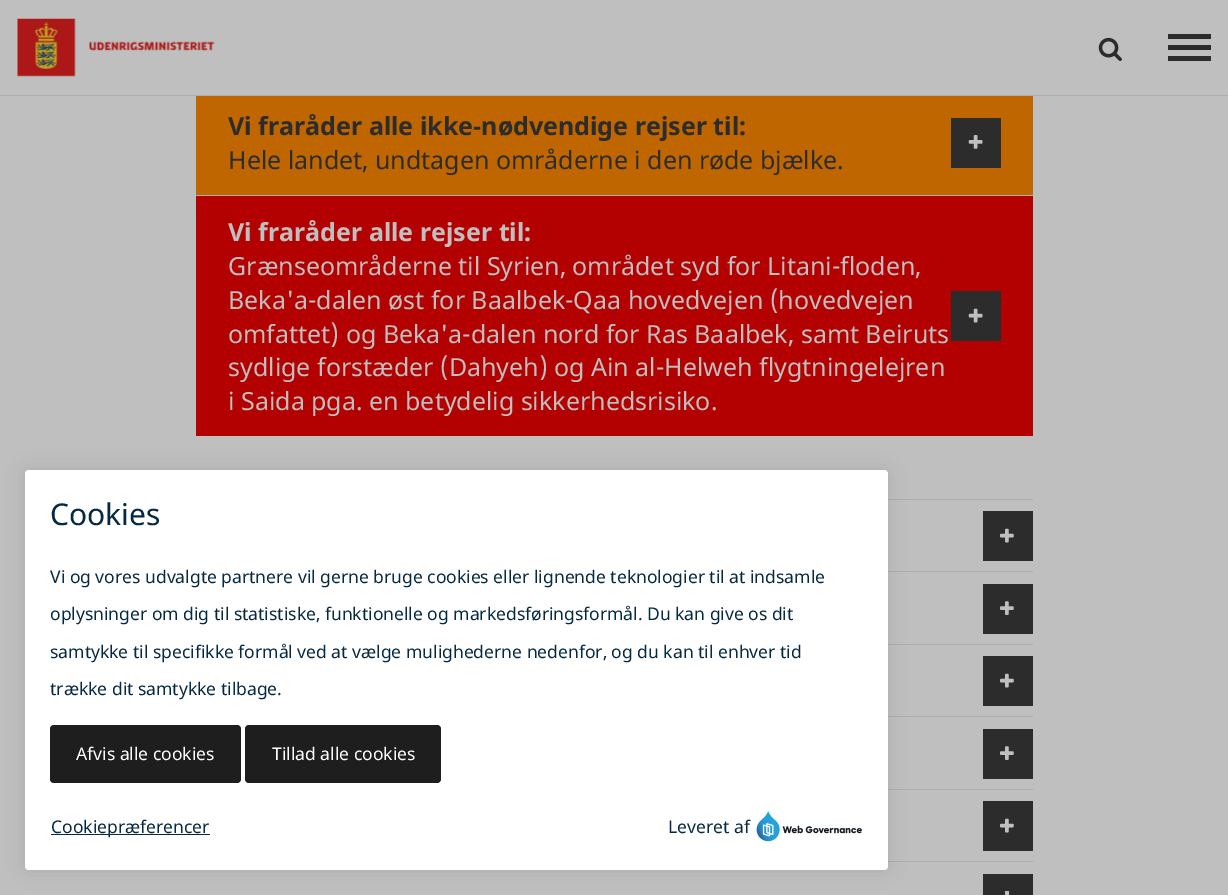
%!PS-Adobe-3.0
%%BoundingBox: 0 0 1228 895
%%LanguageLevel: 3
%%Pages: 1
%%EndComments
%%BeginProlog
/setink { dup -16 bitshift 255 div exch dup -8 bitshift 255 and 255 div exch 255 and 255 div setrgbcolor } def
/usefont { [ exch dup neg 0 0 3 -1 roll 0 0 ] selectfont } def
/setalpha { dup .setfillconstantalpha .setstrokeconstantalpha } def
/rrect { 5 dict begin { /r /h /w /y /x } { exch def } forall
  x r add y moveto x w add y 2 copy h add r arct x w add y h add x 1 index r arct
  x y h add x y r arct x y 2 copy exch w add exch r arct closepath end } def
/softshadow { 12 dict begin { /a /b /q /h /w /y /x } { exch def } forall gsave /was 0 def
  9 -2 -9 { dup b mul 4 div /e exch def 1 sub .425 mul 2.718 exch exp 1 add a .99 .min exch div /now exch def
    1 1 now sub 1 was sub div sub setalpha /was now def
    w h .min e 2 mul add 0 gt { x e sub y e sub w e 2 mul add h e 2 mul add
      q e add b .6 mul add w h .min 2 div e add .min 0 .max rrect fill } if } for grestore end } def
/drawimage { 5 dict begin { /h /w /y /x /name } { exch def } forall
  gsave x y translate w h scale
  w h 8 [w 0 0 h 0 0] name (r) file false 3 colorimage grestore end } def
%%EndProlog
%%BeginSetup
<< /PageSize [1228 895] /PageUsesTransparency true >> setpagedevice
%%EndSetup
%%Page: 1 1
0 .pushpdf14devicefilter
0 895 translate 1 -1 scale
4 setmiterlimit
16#BFBFBF setink
0 0 1228 895 rectfill
16#ADAEB1 setink
0 95 1228 1 rectfill
(img1.raw) 17 18 198 59 drawimage
(img2.raw) 1098 37 24 25 drawimage
[
    [1168 34 43 5 16#2C2C2C]
    [1168 45 43 5 16#2C2C2C]
    [1168 56 43 5 16#2C2C2C]
    [196 96 837 99 16#BF6600]
] { aload pop setink rectfill } forall
/NotoSans-Bold 25 usefont
16#2C2C2C setink
228 135 moveto (Vi fraråder alle ikke-nødvendige rejser til:) show
951 118 50 50 rectfill
(img3.raw) 968 135 15 14 drawimage
/NotoSans-Regular 25 usefont
228 169 moveto (Hele landet, undtagen områderne i den røde bjælke.) show
16#B30000 setink
196 196 837 240 rectfill
16#ADAEB1 setink
196 195 837 1 rectfill
/NotoSans-Bold 25 usefont
16#BFBFBF setink
228 241 moveto (Vi fraråder alle rejser til:) show
/NotoSans-Regular 25 usefont
228 275 moveto (Grænseområderne til Syrien, området syd for Litani-floden,) show
228 309 moveto (Beka'a-dalen øst for Baalbek-Qaa hovedvejen \(hovedvejen) show
16#2C2C2C setink
951 291 50 50 rectfill
(img4.raw) 968 308 15 15 drawimage
16#BFBFBF setink
[
    [(omfattet\) og Beka'a-dalen nord for Ras Baalbek, samt Beiruts) 228 343]
    [(sydlige forstæder \(Dahyeh\) og Ain al-Helweh flygtningelejren) 228 376]
    [(i Saida pga. en betydelig sikkerhedsrisiko.) 228 410]
] { aload pop moveto show } forall
16#ADAEB1 setink
888 499 145 1 rectfill
16#2C2C2C setink
983 511 50 50 rectfill
(img5.raw) 1000 528 14 15 drawimage
16#ADAEB1 setink
888 571 145 1 rectfill
16#2C2C2C setink
983 584 50 50 rectfill
(img6.raw) 1000 601 14 14 drawimage
16#ADAEB1 setink
888 644 145 1 rectfill
16#2C2C2C setink
983 656 50 50 rectfill
(img5.raw) 1000 673 14 15 drawimage
16#ADAEB1 setink
888 716 145 1 rectfill
16#2C2C2C setink
983 729 50 50 rectfill
(img6.raw) 1000 746 14 14 drawimage
16#ADAEB1 setink
888 789 145 1 rectfill
16#2C2C2C setink
983 801 50 50 rectfill
(img5.raw) 1000 818 14 15 drawimage
[
    [888 861 145 1 16#ADAEB1]
    [983 874 50 21 16#2C2C2C]
    [1005 891 4 4 16#BFBFBF]
] { aload pop setink rectfill } forall
16#000000 setink
25 470 863 400 4 9.5 0.1 softshadow
16#FFFFFF setink
25 470 863 400 4 rrect fill
/NotoSans-Regular 30 usefont
16#052942 setink
50 525 moveto (Cookies) show
/NotoSans-Regular 17.5 usefont
[
    [(Vi og vores udvalgte partnere vil gerne bruge cookies eller lignende teknologier til at indsamle) 50 583]
    [(oplysninger om dig til statistiske, funktionelle og markedsføringsformål. Du kan give os dit) 50 620]
    [(samtykke til specifikke formål ved at vælge mulighederne nedenfor, og du kan til enhver tid) 50 658]
    [(trække dit samtykke tilbage.) 50 695]
] { aload pop moveto show } forall
16#1E1E1E setink
50 725 191 58 4 rrect fill
16#FFFFFF setink
76 760 moveto (Afvis alle cookies) show
16#1E1E1E setink
245 725 196 58 4 rrect fill
16#FFFFFF setink
272 760 moveto (Tillad alle cookies) show
16#052942 setink
51 834 159 1 rectfill
51 833 moveto (Cookiepræferencer) show
668 833 moveto (Leveret af) show
(img7.raw) 756 811 106 31 drawimage
.poppdf14devicefilter showpage
%%EOF
